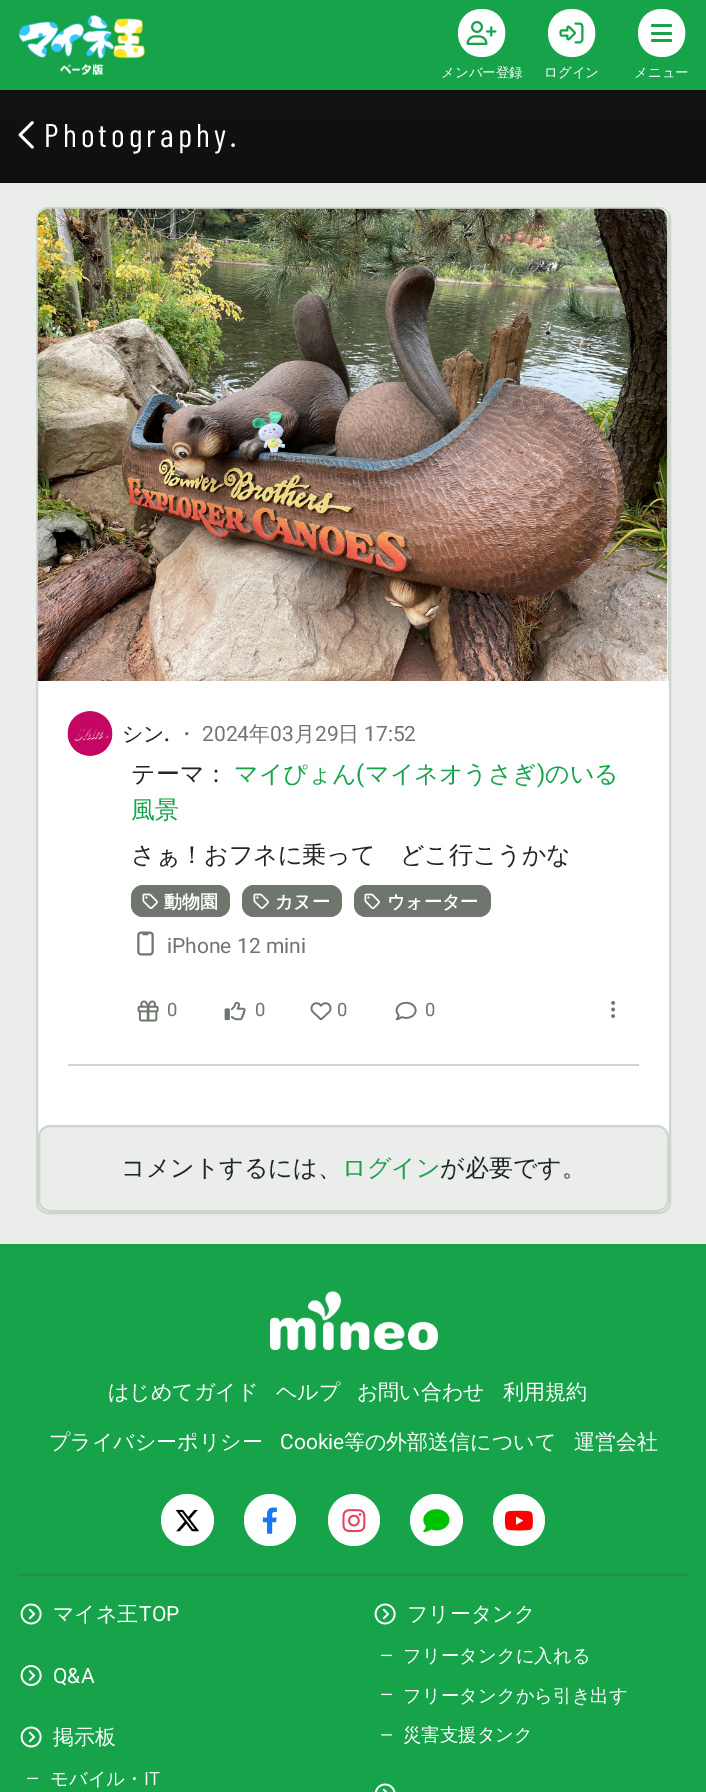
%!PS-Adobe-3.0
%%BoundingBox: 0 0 706 1792
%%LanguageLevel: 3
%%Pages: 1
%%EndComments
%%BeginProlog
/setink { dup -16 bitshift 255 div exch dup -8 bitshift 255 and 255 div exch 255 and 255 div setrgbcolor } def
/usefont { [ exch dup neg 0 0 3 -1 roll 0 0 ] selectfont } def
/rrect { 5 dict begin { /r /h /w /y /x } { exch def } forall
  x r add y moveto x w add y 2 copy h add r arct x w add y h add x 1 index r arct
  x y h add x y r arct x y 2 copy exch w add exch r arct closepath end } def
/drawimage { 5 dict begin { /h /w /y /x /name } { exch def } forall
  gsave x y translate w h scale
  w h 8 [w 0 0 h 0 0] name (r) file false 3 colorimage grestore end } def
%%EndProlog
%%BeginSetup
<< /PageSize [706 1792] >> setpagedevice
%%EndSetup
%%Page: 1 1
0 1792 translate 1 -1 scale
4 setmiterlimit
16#EAEDEA setink
0 0 706 1792 rectfill
16#16A34A setink
0 0 706 90 rectfill
(img1.raw) 18 15 127 60 drawimage
16#FFFFFF setink
482 57 moveto 513 57 513 9 482 9 curveto 450 9 450 57 482 57 curveto closepath fill
(img2.raw) 466 21 31 24 drawimage
/WenQuanYiZenHei-Medium 13.5 usefont
441 77 moveto (メンバー登録) show
572 57 moveto 603 57 603 9 572 9 curveto 540 9 540 57 572 57 curveto closepath fill
(img3.raw) 559 22 25 22 drawimage
544 77 moveto (ログイン) show
662 57 moveto 693 57 693 9 662 9 curveto 630 9 630 57 662 57 curveto closepath fill
16#16A34A setink
651 39 21 3 1.5 rrect fill
651 24 21 3 1.5 rrect fill
651 32 21 3 1.5 rrect fill
16#FFFFFF setink
634 77 moveto (メニュー) show
gsave 0 90 moveto 706 90 lineto 706 183 lineto 0 183 lineto closepath clip newpath
<< /ShadingType 2 /ColorSpace /DeviceRGB /Coords [353 84 353 183] /Extend [true true] /Function << /FunctionType 2 /Domain [0 1] /C0 [0.067 0.075 0.067] /C1 [0.055 0.059 0.055] /N 1 >> >> shfill grestore
(img4.raw) 18 121 16 28 drawimage
/BarlowCondensed-Regular 32.75 usefont
44 147 moveto 4.1 0 (Photography.) ashow
37 208 633 1005 11 rrect gsave fill grestore
16#CFD5CF setink
2 setlinewidth
stroke
16#FFFFFF setink
50 209 moveto 657 209 lineto 663.5 209 669 214.5 669 221 curveto 669 681 lineto 38 681 lineto 38 221 lineto 38 214.5 43.5 209 50 209 curveto closepath fill
16#CFD5CF setink
668 215 1 466 rectfill
(img5.raw) 37 208 631 473 drawimage
(img6.raw) 67 711 46 45 drawimage
/WenQuanYiZenHei-Medium 21 usefont
16#222622 setink
122 741 moveto (シン) show
16#6E766E setink
176 741 moveto (・) show
/Roboto-Regular 21 usefont
202 741 moveto (2024) show
/WenQuanYiZenHei-Medium 21 usefont
249 741 moveto (年) show
/Roboto-Regular 21 usefont
270 741 moveto (03) show
/WenQuanYiZenHei-Medium 21 usefont
294 741 moveto (月) show
/Roboto-Regular 21 usefont
315 741 moveto (29) show
/WenQuanYiZenHei-Medium 21 usefont
338 741 moveto (日) show
/Roboto-Regular 21 usefont
364 741 moveto (17:52) show
/Roboto-Medium 21 usefont
16#222622 setink
164 741 moveto (.) show
/WenQuanYiZenHei-Medium 24 usefont
131 782 moveto (テーマ：) show
16#16A34A setink
234 782 moveto (マイぴょん) show
/Roboto-Regular 24 usefont
356 782 moveto (\() show
/WenQuanYiZenHei-Medium 24 usefont
365 782 moveto (マイネオうさぎ) show
/Roboto-Regular 24 usefont
537 782 moveto (\)) show
/WenQuanYiZenHei-Medium 24 usefont
545 782 moveto (のいる) show
131 818 moveto (風景) show
16#222622 setink
131 863 moveto (さぁ！おフネに乗って　どこ行こうかな) show
16#6E766E setink
131 885 99 32 12 rrect fill
(img7.raw) 142 893 16 16 drawimage
/WenQuanYiZenHei-Bold 18 usefont
16#FFFFFF setink
164 908 moveto (動物園) show
16#6E766E setink
242 885 100 32 12 rrect fill
(img7.raw) 253 893 16 16 drawimage
16#FFFFFF setink
275 908 moveto (カヌー) show
16#6E766E setink
354 885 137 32 12 rrect fill
(img7.raw) 364 893 16 16 drawimage
16#FFFFFF setink
387 908 moveto (ウォーター) show
(img8.raw) 137 931 17 25 drawimage
/Roboto-Regular 21 usefont
16#6E766E setink
167 953 moveto (iPhone 12 mini) show
(img9.raw) 137 1000 22 22 drawimage
/Roboto-Regular 18.4 usefont
167 1016 moveto (0) show
(img10.raw) 224 1001 22 20 drawimage
255 1016 moveto (0) show
(img11.raw) 310 1002 22 19 drawimage
337 1016 moveto (0) show
(img12.raw) 395 1001 22 20 drawimage
425 1016 moveto (0) show
(img13.raw) 611 1001 5 17 drawimage
16#D2D4D2 setink
68 1064 571 2 rectfill
16#EAEDEA setink
39 1126 629 85 11 rrect gsave fill grestore
16#CFD5CF setink
stroke
/WenQuanYiZenHei-Medium 24 usefont
16#222622 setink
121 1176 moveto (コメントするには、) show
16#16A34A setink
342 1176 moveto (ログイン) show
16#222622 setink
440 1176 moveto (が必要です。) show
16#16A34A setink
0 1244 706 548 rectfill
(img14.raw) 270 1291 168 59 drawimage
/WenQuanYiZenHei-Medium 21 usefont
16#FFFFFF setink
[
    [(はじめてガイド) 108 1399]
    [(ヘルプ) 276 1399]
    [(お問い合わせ) 357 1399]
    [(利用規約) 503 1399]
    [(プライバシーポリシー) 49 1449]
] { aload pop moveto show } forall
/Roboto-Regular 21 usefont
280 1449 moveto (Cookie) show
/WenQuanYiZenHei-Medium 21 usefont
344 1449 moveto (等の外部送信について) show
574 1449 moveto (運営会社) show
187 1546 moveto 202 1546 214 1535 214 1520 curveto 214 1506 202 1494 187 1494 curveto 173 1494 161 1506 161 1520 curveto 161 1535 173 1546 187 1546 curveto closepath fill
(img15.raw) 175 1509 25 23 drawimage
270 1546 moveto 284 1546 296 1535 296 1520 curveto 296 1506 284 1494 270 1494 curveto 255 1494 244 1506 244 1520 curveto 244 1535 255 1546 270 1546 curveto closepath fill
(img16.raw) 262 1507 15 27 drawimage
354 1546 moveto 368 1546 380 1535 380 1520 curveto 380 1506 368 1494 354 1494 curveto 339 1494 328 1506 328 1520 curveto 328 1535 339 1546 354 1546 curveto closepath fill
(img17.raw) 342 1509 24 24 drawimage
436 1546 moveto 451 1546 463 1535 463 1520 curveto 463 1506 451 1494 436 1494 curveto 422 1494 410 1506 410 1520 curveto 410 1535 422 1546 436 1546 curveto closepath fill
(img18.raw) 423 1509 27 24 drawimage
519 1546 moveto 533 1546 545 1535 545 1520 curveto 545 1506 533 1494 519 1494 curveto 504 1494 493 1506 493 1520 curveto 493 1535 504 1546 519 1546 curveto closepath fill
(img19.raw) 504 1510 29 21 drawimage
16#238F4A setink
18 1574 671 2 rectfill
(img20.raw) 20 1603 22 22 drawimage
16#FFFFFF setink
53 1621 moveto (マイネ王) show
/Roboto-Regular 21 usefont
139 1621 moveto (TOP) show
(img21.raw) 20 1665 22 21 drawimage
53 1683 moveto (Q&A) show
(img20.raw) 20 1726 22 22 drawimage
/WenQuanYiZenHei-Medium 21 usefont
53 1744 moveto (掲示板) show
(img22.raw) 27 1777 12 3 drawimage
/WenQuanYiZenHei-Medium 18.4 usefont
50 1785 moveto (モバイル・) show
/Roboto-Regular 18.4 usefont
144 1785 moveto (IT) show
(img20.raw) 374 1603 22 22 drawimage
/WenQuanYiZenHei-Medium 21 usefont
407 1621 moveto (フリータンク) show
(img22.raw) 381 1654 12 3 drawimage
/WenQuanYiZenHei-Medium 18.4 usefont
403 1662 moveto (フリータンクに入れる) show
(img22.raw) 381 1693 12 3 drawimage
403 1702 moveto (フリータンクから引き出す) show
(img23.raw) 381 1734 12 2 drawimage
403 1741 moveto (災害支援タンク) show
(img24.raw) 374 1783 22 9 drawimage
showpage
%%EOF
